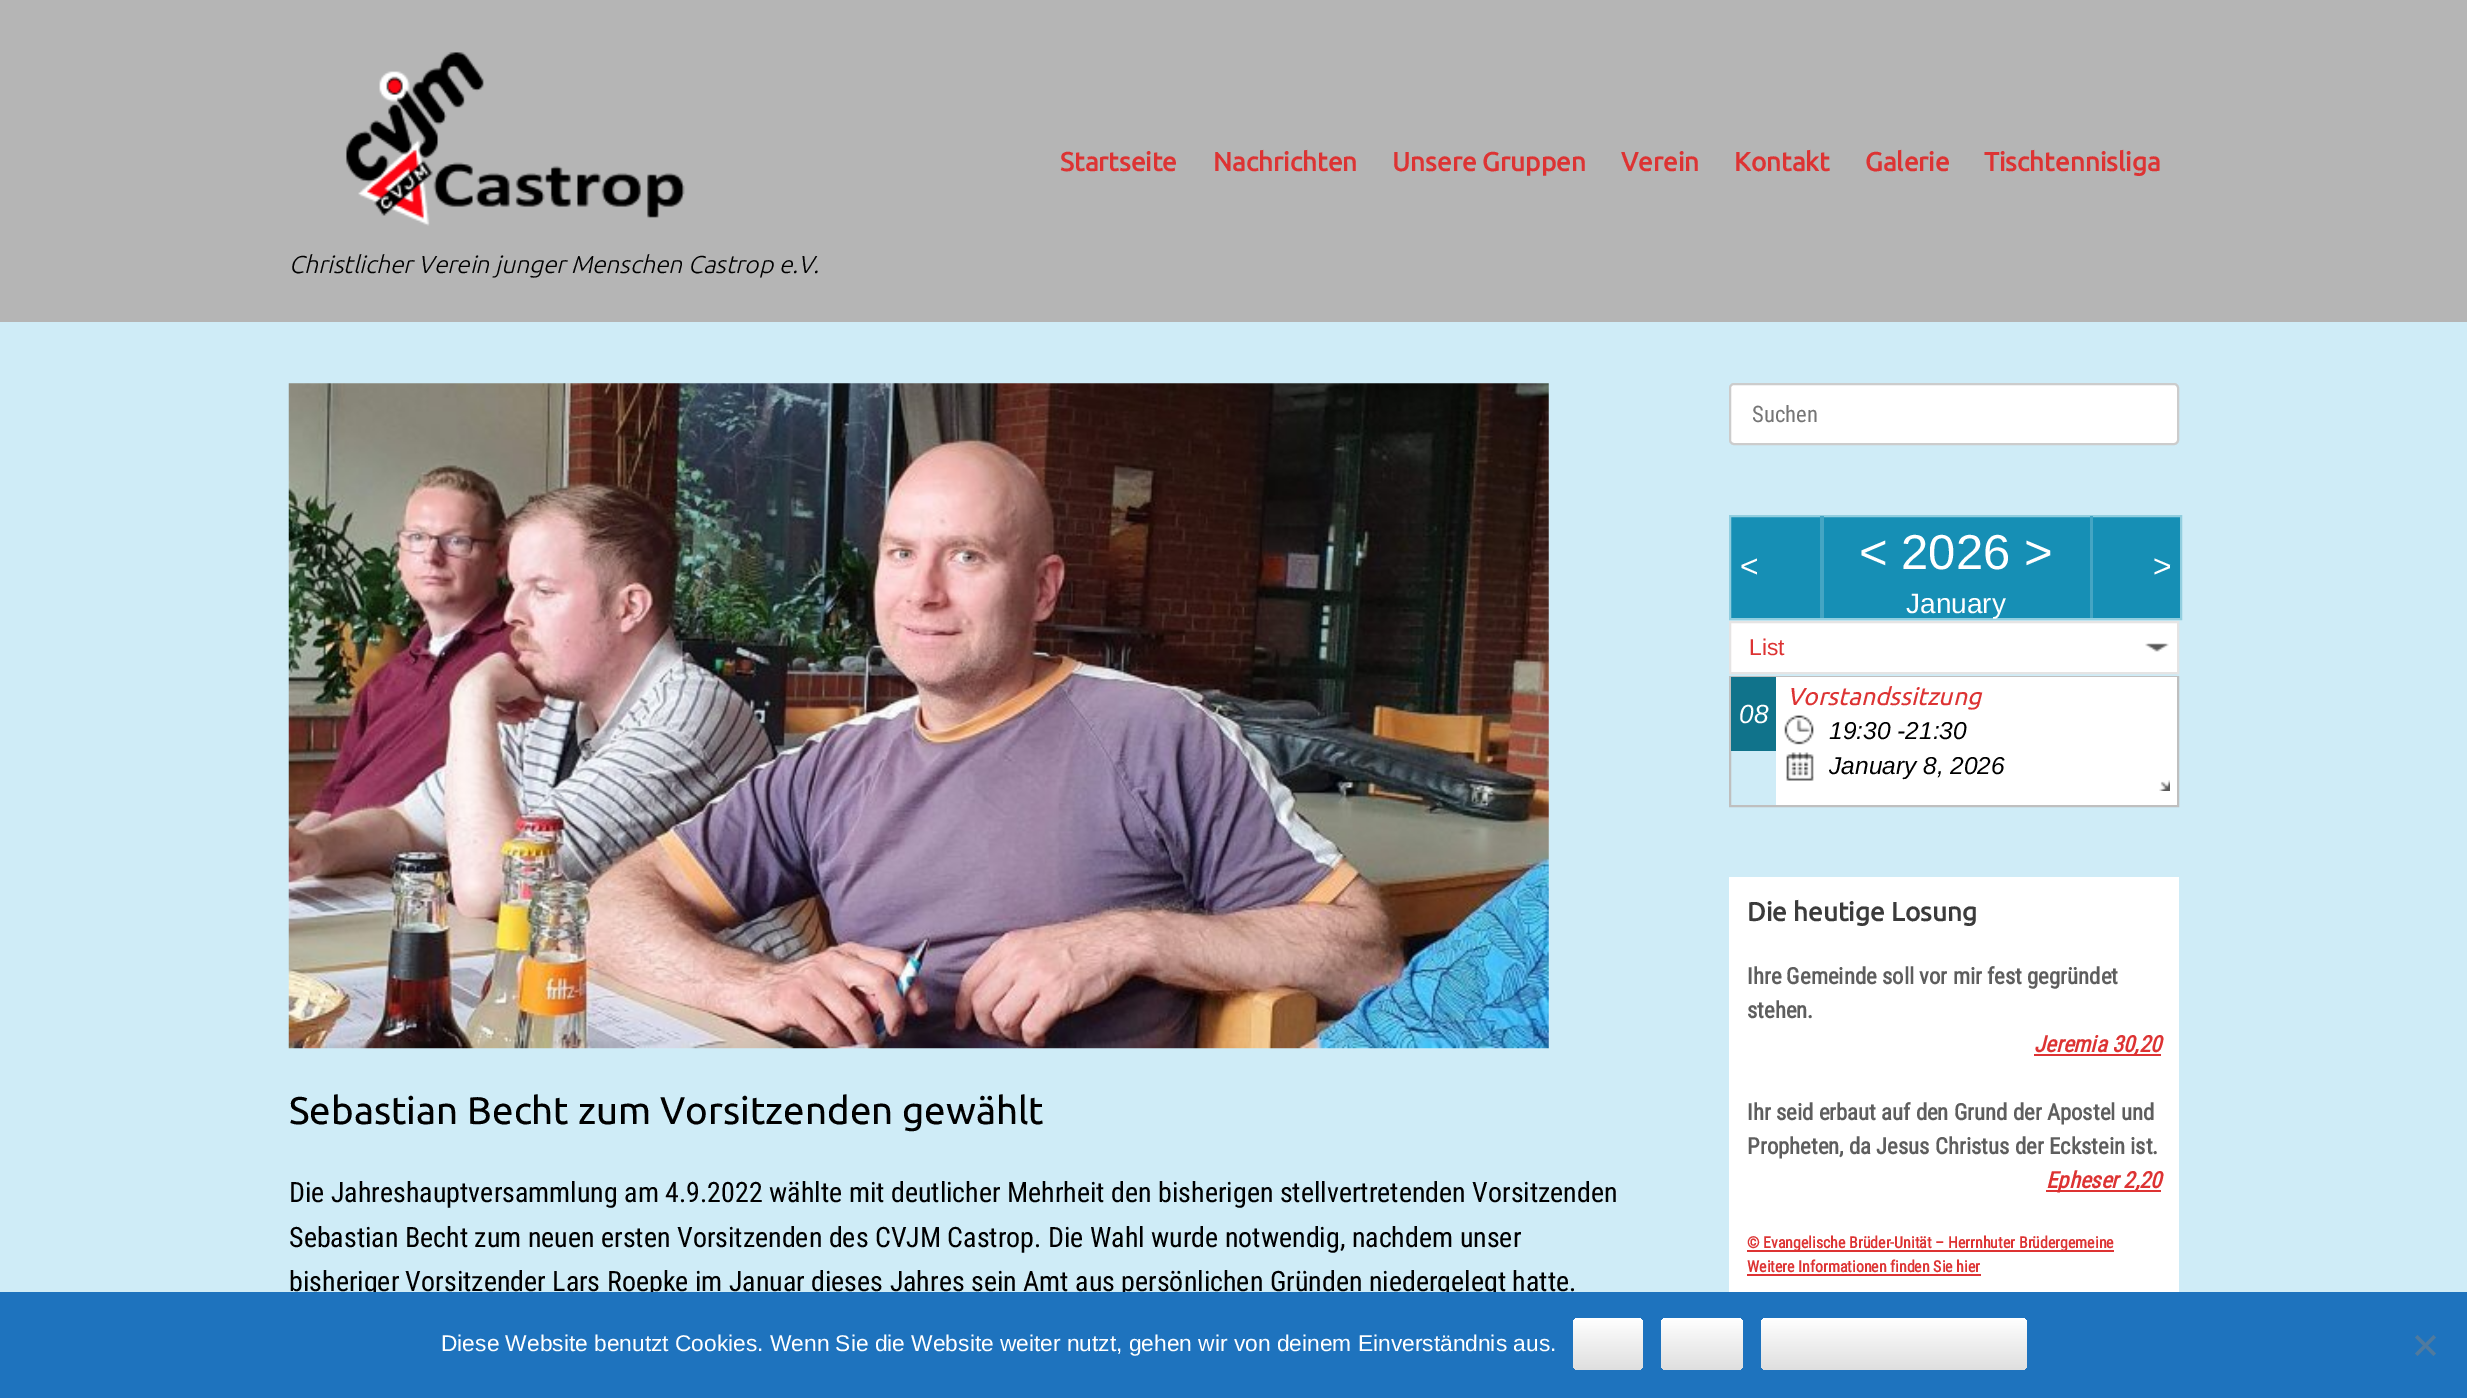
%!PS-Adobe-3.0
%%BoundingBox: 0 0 2467 1398
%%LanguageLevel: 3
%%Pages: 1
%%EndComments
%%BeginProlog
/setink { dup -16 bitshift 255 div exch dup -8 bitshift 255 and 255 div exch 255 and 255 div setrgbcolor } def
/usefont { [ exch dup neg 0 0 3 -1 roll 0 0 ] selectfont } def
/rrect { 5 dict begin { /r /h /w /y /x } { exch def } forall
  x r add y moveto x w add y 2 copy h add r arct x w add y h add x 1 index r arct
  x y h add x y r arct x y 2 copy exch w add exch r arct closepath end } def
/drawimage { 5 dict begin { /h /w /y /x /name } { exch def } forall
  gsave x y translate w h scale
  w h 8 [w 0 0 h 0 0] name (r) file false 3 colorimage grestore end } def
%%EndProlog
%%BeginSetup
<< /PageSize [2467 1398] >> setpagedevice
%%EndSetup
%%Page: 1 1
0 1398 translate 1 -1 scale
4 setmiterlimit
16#CFECF7 setink
0 0 2467 1398 rectfill
16#B5B5B5 setink
0 0 2467 322 rectfill
/Ubuntu-Bold 26.25 usefont
16#DD3333 setink
[
    [(Startseite) 1060 171]
    [(Nachrichten) 1213 171]
    [(Unsere Gruppen) 1392 171]
    [(Verein) 1621 171]
    [(Kontakt) 1734 171]
    [(Galerie) 1865 171]
    [(Tischtennisliga) 1984 171]
] { aload pop moveto show } forall
(img1.raw) 346 52 339 174 drawimage
/Ubuntu-LightItalic 24.5 usefont
16#000000 setink
289 273 moveto (Christlicher Verein junger Menschen Castrop e.V.) show
(img2.raw) 288 383 1261 666 drawimage
/Ubuntu-Regular 38.5 usefont
289 1124 moveto (Sebastian Becht zum Vorsitzenden gewählt) show
/RobotoCondensed-Regular 28 usefont
[
    [(Die Jahreshauptversammlung am 4.9.2022 wählte mit deutlicher Mehrheit den bisherigen stellvertretenden Vorsitzenden) 289 1202]
    [(Sebastian Becht zum neuen ersten Vorsitzenden des CVJM Castrop. Die Wahl wurde notwendig, nachdem unser) 289 1247]
    [(bisheriger Vorsitzender Lars Roepke im Januar dieses Jahres sein Amt aus persönlichen Gründen niedergelegt hatte.) 289 1291]
] { aload pop moveto show } forall
16#FFFFFF setink
1730 384 448 60 4 rrect gsave fill grestore
16#CCCCCC setink
2 setlinewidth
stroke
/RobotoCondensed-Regular 22.75 usefont
16#757575 setink
1752 422 moveto (Suchen) show
16#168FB5 setink
1730 516 moveto 2181 516 lineto 2181 619 lineto 1730 619 lineto closepath gsave fill grestore
16#91CEDF setink
stroke
16#44A5C3 setink
1820 516 4 102 rectfill
/LiberationSans-Regular 32 usefont
16#FFFFFF setink
1740 577 moveto (<) show
16#44A5C3 setink
2090 516 3 102 rectfill
/LiberationSans-Regular 49 usefont
16#FFFFFF setink
1859 569 moveto (< 2026 >) show
/LiberationSans-Regular 28 usefont
1906 613 moveto (January) show
/LiberationSans-Regular 32 usefont
2153 577 moveto (>) show
1731 623 446 49 rectfill
(img3.raw) 2145 643 24 9 drawimage
16#E5E4E4 setink
1730 622 448 51 rectstroke
/LiberationSans-Regular 22.75 usefont
16#DD3333 setink
1749 655 moveto (List) show
16#BFBFBF setink
1730 677 448 129 rectstroke
16#10738B setink
1731 677 45 74 rectfill
/LiberationSans-Italic 26.25 usefont
16#FFFFFF setink
1739 723 moveto (08) show
1776 677 401 128 rectfill
/Ubuntu-Italic 24.5 usefont
16#DD3333 setink
1787 705 moveto (Vorstandssitzung) show
(img4.raw) 1784 715 30 30 drawimage
/LiberationSans-Italic 24.5 usefont
16#000000 setink
1829 739 moveto (19:30 -21:30) show
(img5.raw) 1786 752 28 29 drawimage
1829 774 moveto (January 8, 2026) show
(img6.raw) 2159 780 11 11 drawimage
16#FFFFFF setink
1729 877 450 415 rectfill
/Ubuntu-Bold 26.25 usefont
16#3B3B3B setink
1747 921 moveto (Die heutige Losung) show
/RobotoCondensed-Bold 22.75 usefont
16#5E5E5E setink
1747 984 moveto (Ihre Gemeinde soll vor mir fest gegründet) show
1747 1018 moveto (stehen.) show
16#DD3333 setink
2034 1054 127 2 rectfill
/RobotoCondensed-BoldItalic 22.75 usefont
2034 1052 moveto (Jeremia 30,20) show
/RobotoCondensed-Bold 22.75 usefont
16#5E5E5E setink
1747 1120 moveto (Ihr seid erbaut auf den Grund der Apostel und) show
1747 1154 moveto (Propheten, da Jesus Christus der Eckstein ist.) show
16#DD3333 setink
2046 1190 115 2 rectfill
/RobotoCondensed-BoldItalic 22.75 usefont
2046 1188 moveto (Epheser 2,20) show
1747 1250 367 2 rectfill
/RobotoCondensed-Bold 15.9 usefont
1747 1248 moveto (© Evangelische Brüder-Unität – Herrnhuter Brüdergemeine) show
1747 1272 moveto (Weitere Informationen finden Sie hier) show
1747 1274 234 2 rectfill
16#1E73BE setink
0 1292 2467 106 rectfill
/LiberationSans-Regular 22.75 usefont
16#FFFFFF setink
441 1351 moveto (Diese Website benutzt Cookies. Wenn Sie die Website weiter nutzt, gehen wir von deinem Einverständnis aus.) show
gsave 1573 1318 70 52 5 rrect clip newpath
<< /ShadingType 2 /ColorSpace /DeviceRGB /Coords [1573 1370 1573 1318] /Extend [true true] /Function << /FunctionType 2 /Domain [0 1] /C0 [0.875 0.875 0.875] /C1 [1 1 1] /N 1 >> >> shfill grestore
gsave 1661 1318 82 52 5 rrect clip newpath
<< /ShadingType 2 /ColorSpace /DeviceRGB /Coords [1661 1370 1661 1318] /Extend [true true] /Function << /FunctionType 2 /Domain [0 1] /C0 [0.875 0.875 0.875] /C1 [1 1 1] /N 1 >> >> shfill grestore
gsave 1761 1318 266 52 5 rrect clip newpath
<< /ShadingType 2 /ColorSpace /DeviceRGB /Coords [1761 1370 1761 1318] /Extend [true true] /Function << /FunctionType 2 /Domain [0 1] /C0 [0.875 0.875 0.875] /C1 [1 1 1] /N 1 >> >> shfill grestore
16#4F7A9F setink
2433.5 1335 moveto 2436 1337.5 lineto 2417.5 1356 lineto 2415 1353.5 lineto closepath fill
2415 1337.5 moveto 2417.5 1335 lineto 2436 1353.5 lineto 2433.5 1356 lineto closepath fill
showpage
%%EOF
